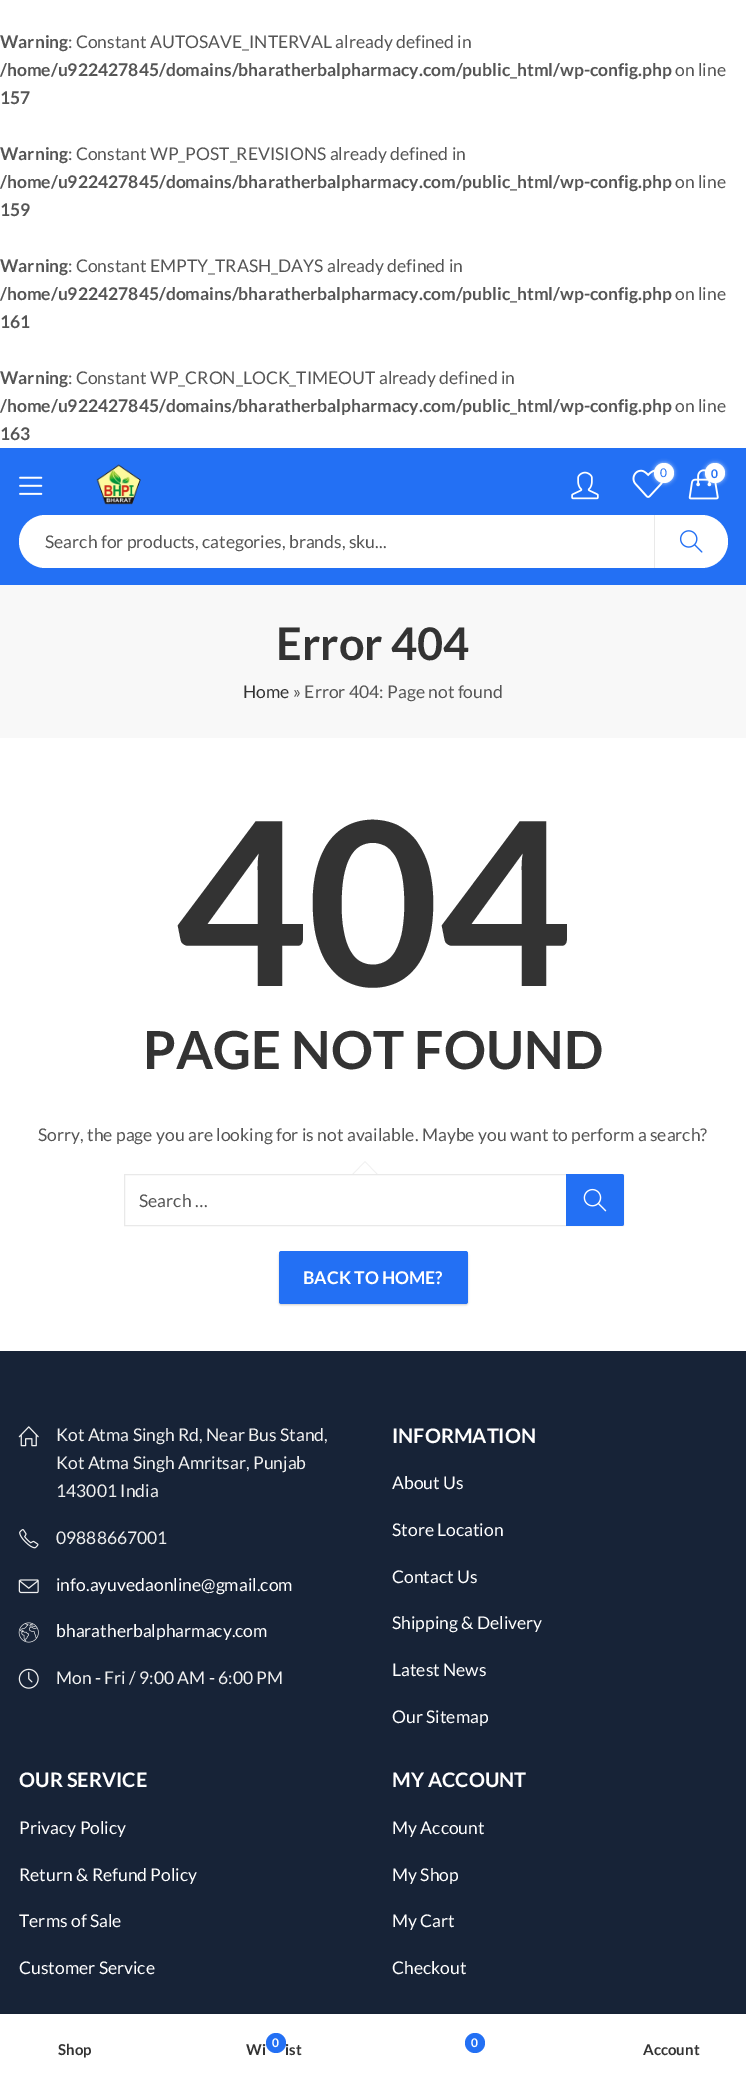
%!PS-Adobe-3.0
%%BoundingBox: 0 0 746 2084
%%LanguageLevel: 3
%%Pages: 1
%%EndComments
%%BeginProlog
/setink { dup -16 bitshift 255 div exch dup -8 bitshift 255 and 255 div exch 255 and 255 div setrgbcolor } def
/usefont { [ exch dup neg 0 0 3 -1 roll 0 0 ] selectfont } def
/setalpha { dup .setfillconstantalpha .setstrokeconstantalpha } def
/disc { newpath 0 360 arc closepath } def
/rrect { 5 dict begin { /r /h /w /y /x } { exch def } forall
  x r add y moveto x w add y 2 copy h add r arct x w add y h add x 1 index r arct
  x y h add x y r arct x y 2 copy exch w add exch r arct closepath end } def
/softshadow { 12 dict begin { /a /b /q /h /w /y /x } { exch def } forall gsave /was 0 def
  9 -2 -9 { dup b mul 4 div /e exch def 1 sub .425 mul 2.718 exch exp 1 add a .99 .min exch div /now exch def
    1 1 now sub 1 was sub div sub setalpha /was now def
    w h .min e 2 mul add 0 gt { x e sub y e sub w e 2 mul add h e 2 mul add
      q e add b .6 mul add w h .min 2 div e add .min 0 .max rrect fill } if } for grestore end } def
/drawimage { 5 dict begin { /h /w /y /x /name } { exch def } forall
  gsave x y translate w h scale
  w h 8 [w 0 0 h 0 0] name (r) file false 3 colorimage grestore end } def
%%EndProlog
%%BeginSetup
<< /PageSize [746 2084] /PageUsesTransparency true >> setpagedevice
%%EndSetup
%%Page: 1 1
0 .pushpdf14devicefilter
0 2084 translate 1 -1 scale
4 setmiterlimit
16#FFFFFF setink
0 0 746 2084 rectfill
/Lato-Bold 17.5 usefont
16#555555 setink
0 48 moveto (Warning) show
/Lato-Regular 17.5 usefont
68 48 moveto (: Constant AUTOSAVE_INTERVAL already defined in) show
/Lato-Bold 17.5 usefont
0 76 moveto (/home/u922427845/domains/bharatherbalpharmacy.com/public_html/wp-config.php) show
/Lato-Regular 17.5 usefont
675 76 moveto (on line) show
/Lato-Bold 17.5 usefont
0 104 moveto (157) show
0 160 moveto (Warning) show
/Lato-Regular 17.5 usefont
68 160 moveto (: Constant WP_POST_REVISIONS already defined in) show
/Lato-Bold 17.5 usefont
0 188 moveto (/home/u922427845/domains/bharatherbalpharmacy.com/public_html/wp-config.php) show
/Lato-Regular 17.5 usefont
675 188 moveto (on line) show
/Lato-Bold 17.5 usefont
0 216 moveto (159) show
0 272 moveto (Warning) show
/Lato-Regular 17.5 usefont
68 272 moveto (: Constant EMPTY_TRASH_DAYS already defined in) show
/Lato-Bold 17.5 usefont
0 300 moveto (/home/u922427845/domains/bharatherbalpharmacy.com/public_html/wp-config.php) show
/Lato-Regular 17.5 usefont
675 300 moveto (on line) show
/Lato-Bold 17.5 usefont
0 328 moveto (161) show
0 384 moveto (Warning) show
/Lato-Regular 17.5 usefont
68 384 moveto (: Constant WP_CRON_LOCK_TIMEOUT already defined in) show
/Lato-Bold 17.5 usefont
0 412 moveto (/home/u922427845/domains/bharatherbalpharmacy.com/public_html/wp-config.php) show
/Lato-Regular 17.5 usefont
675 412 moveto (on line) show
/Lato-Bold 17.5 usefont
0 440 moveto (163) show
16#2370F4 setink
0 448 746 137 rectfill
(img1.raw) 19 476 24 19 drawimage
(img2.raw) 96 464 45 41 drawimage
(img3.raw) 571 471 28 29 drawimage
(img4.raw) 632 469 32 29 drawimage
16#FFFFFF setink
654 463 20 20 10 2 0.7 softshadow
664 473 10 disc fill
/Lato-Regular 12 usefont
16#2370F4 setink
660 477 moveto (0) show
(img5.raw) 688 469 31 31 drawimage
16#FFFFFF setink
705 463 20 20 10 2 0.7 softshadow
715 473 10 disc fill
/Lato-Bold 12 usefont
16#2370F4 setink
711 478 moveto (0) show
16#FFFFFF setink
45.5 515 moveto 655 515 lineto 655 568 lineto 45.5 568 lineto 31 568 19 556 19 541.5 curveto 19 527 31 515 45.5 515 curveto closepath fill
16#E9E9E9 setink
654 515 1 53 rectfill
/Lato-Regular 17.5 usefont
16#555555 setink
45 548 moveto (Search for products, categories, brands, sku...) show
16#FFFFFF setink
655 515 moveto 701.5 515 lineto 716 515 728 527 728 541.5 curveto 728 556 716 568 701.5 568 curveto 655 568 lineto closepath fill
(img6.raw) 679 530 24 23 drawimage
16#F8F8F8 setink
0 585 746 153 rectfill
/Lato-Bold 45 usefont
16#333333 setink
276 660 moveto (Error 404) show
/Lato-Regular 17.5 usefont
243 698 moveto (Home) show
16#555555 setink
293 698 moveto (» Error 404: Page not found) show
/Lato-Bold 228 usefont
16#333333 setink
175 986 moveto (404) show
/Lato-Bold 52.5 usefont
143 1069 moveto (PAGE NOT FOUND) show
/Lato-Regular 17.5 usefont
16#555555 setink
38 1141 moveto (Sorry, the page you are looking for is not available. Maybe you want to perform a search?) show
16#F0F0F0 setink
377.5 1174 moveto 352.5 1174 lineto 365 1161 lineto closepath fill
16#FFFFFF setink
376 1174 moveto 354 1174 lineto 365 1162.5 lineto closepath fill
16#E9E9E9 setink
124.5 1174.5 499 51 rectstroke
16#555555 setink
139 1207 moveto (Search …) show
16#2370F4 setink
566 1174 moveto 621.5 1174 lineto 623 1174 624 1175 624 1176.5 curveto 624 1223.5 lineto 624 1225 623 1226 621.5 1226 curveto 566 1226 lineto closepath fill
(img7.raw) 583 1188 24 24 drawimage
16#000000 setink
279 1253 189 52 2.5 1 0.2 softshadow
16#2370F4 setink
279 1251 189 53 2.5 rrect fill
/Lato-Bold 17.5 usefont
16#FFFFFF setink
303 1284 moveto (BACK TO HOME?) show
16#172337 setink
0 1351 746 663 rectfill
(img8.raw) 18 1426 21 21 drawimage
/Lato-Regular 17.5 usefont
16#F1F1F1 setink
[
    [(Kot Atma Singh Rd, Near Bus Stand,) 56 1441]
    [(Kot Atma Singh Amritsar, Punjab) 56 1469]
    [(143001 India) 56 1497]
] { aload pop moveto show } forall
(img9.raw) 19 1529 20 20 drawimage
56 1544 moveto (09888667001) show
(img10.raw) 18 1579 21 15 drawimage
16#FFFFFF setink
56 1591 moveto (info.ayuvedaonline@gmail.com) show
(img11.raw) 18 1622 21 21 drawimage
56 1637 moveto (bharatherbalpharmacy.com) show
(img12.raw) 18 1668 21 21 drawimage
16#F1F1F1 setink
56 1684 moveto (Mon - Fri / 9:00 AM - 6:00 PM) show
/Lato-Bold 20 usefont
16#FFFFFF setink
392 1443 moveto (INFORMATION) show
/Lato-Regular 17.5 usefont
[
    [(About Us) 392 1489]
    [(Store Location) 392 1536]
    [(Contact Us) 392 1583]
    [(Shipping & Delivery) 392 1629]
    [(Latest News) 392 1676]
    [(Our Sitemap) 392 1723]
] { aload pop moveto show } forall
/Lato-Bold 20 usefont
19 1787 moveto (OUR SERVICE) show
/Lato-Regular 17.5 usefont
[
    [(Privacy Policy) 19 1834]
    [(Return & Refund Policy) 19 1881]
    [(Terms of Sale) 19 1927]
    [(Customer Service) 19 1974]
] { aload pop moveto show } forall
/Lato-Bold 20 usefont
392 1787 moveto (MY ACCOUNT) show
/Lato-Regular 17.5 usefont
[
    [(My Account) 392 1834]
    [(My Shop) 392 1881]
    [(My Cart) 392 1927]
    [(Checkout) 392 1974]
] { aload pop moveto show } forall
16#000000 setink
0 2014 746 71 0 2.5 0.15 softshadow
16#FFFFFF setink
0 2014 746 70 rectfill
/Lato-Bold 15 usefont
16#333333 setink
58 2055 moveto (Shop) show
16#FFFFFF setink
266 2033 20 20 10 2 0.7 softshadow
16#333333 setink
285 2055 moveto (ist) show
16#2370F4 setink
276 2043 10 disc fill
/Lato-Bold 12 usefont
16#FFFFFF setink
272 2047 moveto (0) show
/Lato-Bold 15 usefont
16#333333 setink
246 2055 moveto (Wi) show
16#2370F4 setink
475 2043 10 disc fill
/Lato-Bold 12 usefont
16#FFFFFF setink
471 2047 moveto (0) show
/Lato-Bold 15 usefont
16#333333 setink
643 2055 moveto (Account) show
.poppdf14devicefilter showpage
%%EOF
